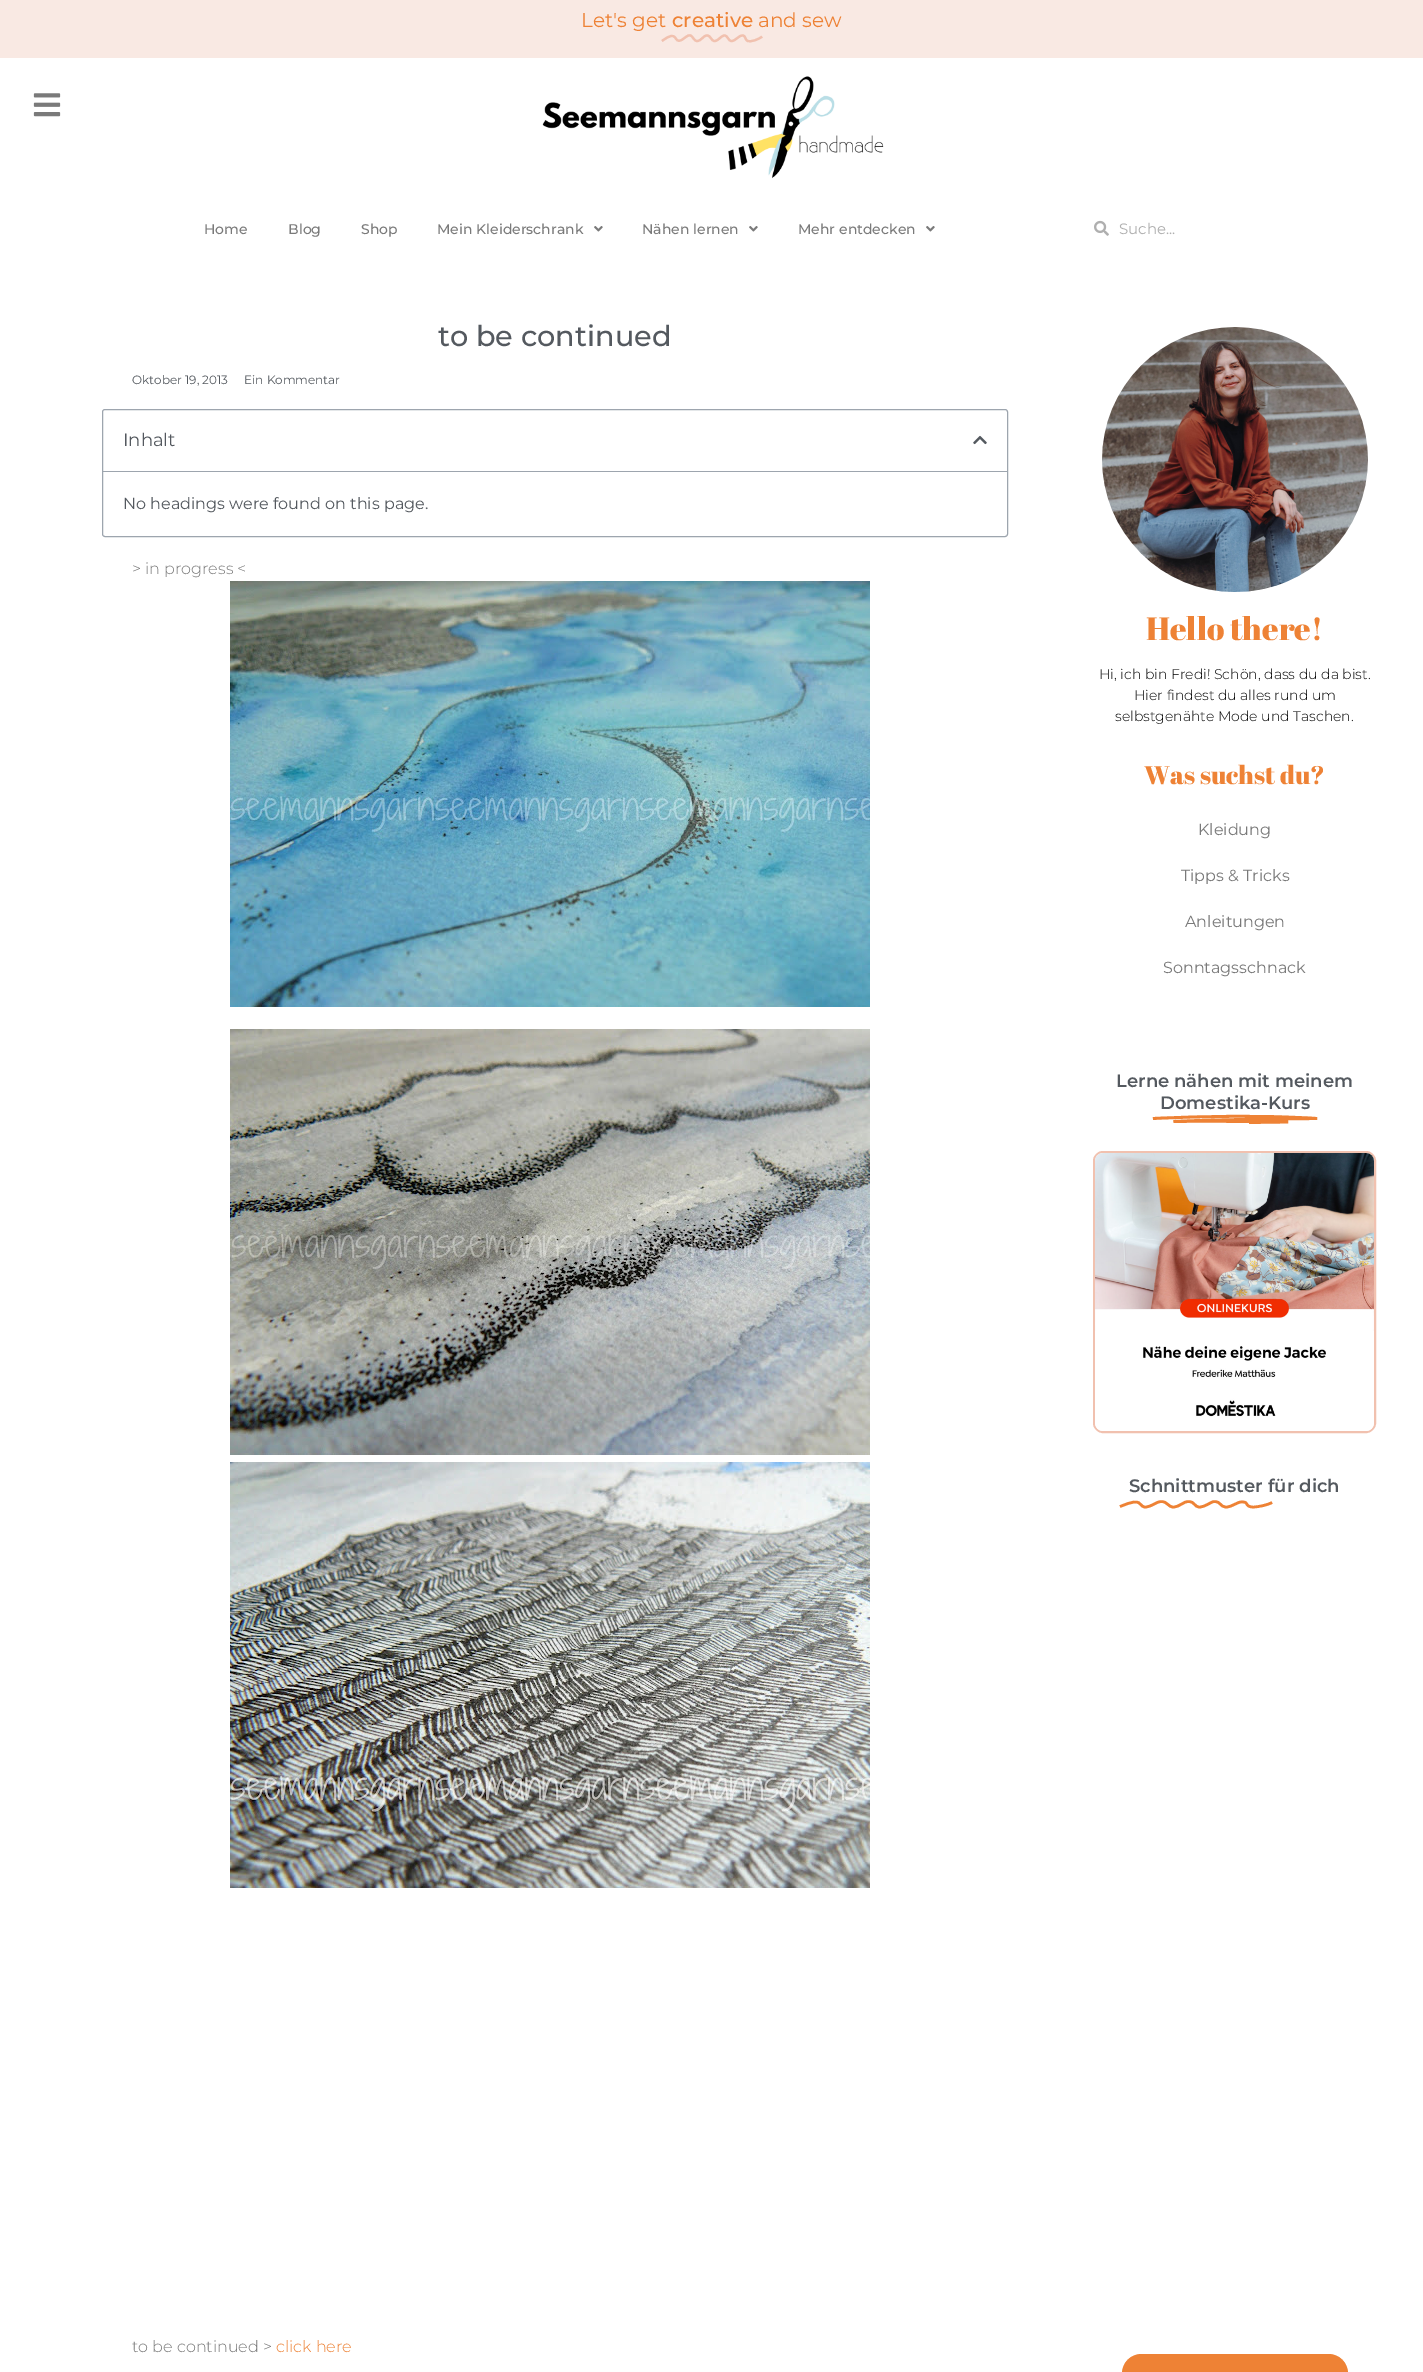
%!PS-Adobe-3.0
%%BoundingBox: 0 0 1423 2372
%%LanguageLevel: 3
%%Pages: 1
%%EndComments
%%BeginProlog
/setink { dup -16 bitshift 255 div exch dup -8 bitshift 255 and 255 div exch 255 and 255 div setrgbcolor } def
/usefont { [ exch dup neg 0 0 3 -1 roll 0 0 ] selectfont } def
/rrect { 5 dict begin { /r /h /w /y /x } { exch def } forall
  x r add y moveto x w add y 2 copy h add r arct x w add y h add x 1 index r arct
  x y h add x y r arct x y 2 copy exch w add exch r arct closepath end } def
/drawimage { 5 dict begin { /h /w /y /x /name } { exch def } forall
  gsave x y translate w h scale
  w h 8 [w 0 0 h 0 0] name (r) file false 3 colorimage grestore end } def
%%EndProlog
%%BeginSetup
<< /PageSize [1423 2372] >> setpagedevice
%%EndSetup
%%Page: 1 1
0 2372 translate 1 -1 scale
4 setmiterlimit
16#FFFFFF setink
0 0 1423 2372 rectfill
16#F9E9E3 setink
0 0 1423 58 rectfill
/Montserrat-Regular 20 usefont
16#EE8235 setink
581 27 moveto (Let's get) show
/Montserrat-Medium 20 usefont
672 27 moveto (creative) show
16#F1C1AF setink
2.2 setlinewidth
662 41 moveto 679 28 673 44.5 681.5 40 curveto 684.5 38.5 687.5 34.5 690.5 35.5 curveto 693 36.5 694 41 697 41 curveto 701.5 41 703 35.5 707 35.5 curveto 711 35.5 711 41 714.5 41 curveto 718.5 41 721 35.5 724.5 35.5 curveto 728 35.5 728 41 731.5 41 curveto 736 41 738.5 35 743 35.5 curveto 745.5 36 745 39 747 40.5 curveto 750 43 759.5 39 762 36.5 curveto stroke
/Montserrat-Regular 20 usefont
16#EE8235 setink
758 27 moveto (and sew) show
(img1.raw) 33 93 28 24 drawimage
(img2.raw) 542 76 342 103 drawimage
/Montserrat-Medium 14 usefont
16#7A7A7A setink
[
    [(Home) 204 234]
    [(Blog) 288 234]
    [(Shop) 361 234]
    [(Mein Kleiderschrank) 437 234]
] { aload pop moveto show } forall
(img3.raw) 594 226 9 6 drawimage
642 234 moveto (Nähen lernen) show
(img3.raw) 749 226 9 6 drawimage
798 234 moveto (Mehr entdecken) show
(img3.raw) 926 226 9 6 drawimage
(img4.raw) 1094 220 15 16 drawimage
/Montserrat-Regular 15 usefont
16#AFAFAF setink
1119 234 moveto (Suche...) show
/Montserrat-Medium 28.75 usefont
16#54595F setink
438 346 moveto (to be continued) show
/Montserrat-Regular 12 usefont
132 384 moveto (Oktober 19, 2013) show
244 384 moveto (Ein Kommentar) show
16#9DA5AE setink
1 setlinewidth
102.5 409.5 905 127 2.5 rrect stroke
103 471 904 1 rectfill
/Montserrat-Regular 18 usefont
16#54595F setink
123 446 moveto (Inhalt) show
(img5.raw) 973 435 14 10 drawimage
/Montserrat-Regular 16 usefont
123 509 moveto (No headings were found on this page.) show
/Montserrat-Light 16 usefont
16#7A7A7A setink
132 574 moveto (> in progress <) show
(img6.raw) 230 581 640 426 drawimage
(img7.raw) 230 1029 640 426 drawimage
(img8.raw) 230 1462 640 426 drawimage
132 2352 moveto (to be continued >) show
16#EE8235 setink
276 2352 moveto (click here) show
(img9.raw) 1102 327 266 265 drawimage
/AbrilFatface-Regular 32 usefont
1146 640 moveto (Hello there!) show
/Montserrat-Light 14 usefont
16#000000 setink
[
    [(Hi, ich bin Fredi! Schön, dass du da bist.) 1099 679]
    [(Hier findest du alles rund um) 1134 700]
    [(selbstgenähte Mode und Taschen.) 1115 721]
] { aload pop moveto show } forall
/AbrilFatface-Regular 25.5 usefont
16#EE8235 setink
1144 784 moveto (Was suchst du?) show
/Montserrat-Regular 16 usefont
16#7A7A7A setink
[
    [(Kleidung) 1198 835]
    [(Tipps & Tricks) 1181 881]
    [(Anleitungen) 1185 927]
    [(Sonntagsschnack) 1163 973]
] { aload pop moveto show } forall
/Montserrat-SemiBold 18 usefont
16#54595F setink
1116 1087 moveto (Lerne nähen mit meinem) show
1160 1109 moveto (Domestika-Kurs) show
16#EE8235 setink
2.8 setlinewidth
1153 1118.5 moveto 1207.5 1116 1262.5 1115 1317 1118.5 curveto 1279.5 1119 1211.5 1119.5 1173.5 1121.5 curveto 1202 1121 1260.5 1121.5 1288 1122 curveto 1249 1122.5 lineto stroke
16#F1C1AF setink
2 setlinewidth
1094 1152 281 280 9 rrect stroke
(img10.raw) 1095 1153 279 278 drawimage
16#54595F setink
1129 1492 moveto (Schnittmuster für dich) show
16#EE8235 setink
2.6 setlinewidth
1120 1506.5 moveto 1125.5 1504.5 1130.5 1502 1136 1502 curveto 1140.5 1502 1141 1507 1145 1507 curveto 1152 1507 1156 1501.5 1161.5 1501.5 curveto 1167 1501.5 1168.5 1507 1173 1507 curveto 1180 1507 1183 1501.5 1188.5 1501.5 curveto 1195 1501.5 1194 1507 1199.5 1507 curveto 1205.5 1507 1211 1501.5 1214.5 1501.5 curveto 1221 1501.5 1220 1507 1226 1507 curveto 1233 1507 1237.5 1501 1243 1502 curveto 1248.5 1502 1245 1507 1253 1507 curveto 1258.5 1507 1267.5 1505 1272 1502.5 curveto stroke
1122 2354 226 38 19.5 rrect fill
showpage
%%EOF
